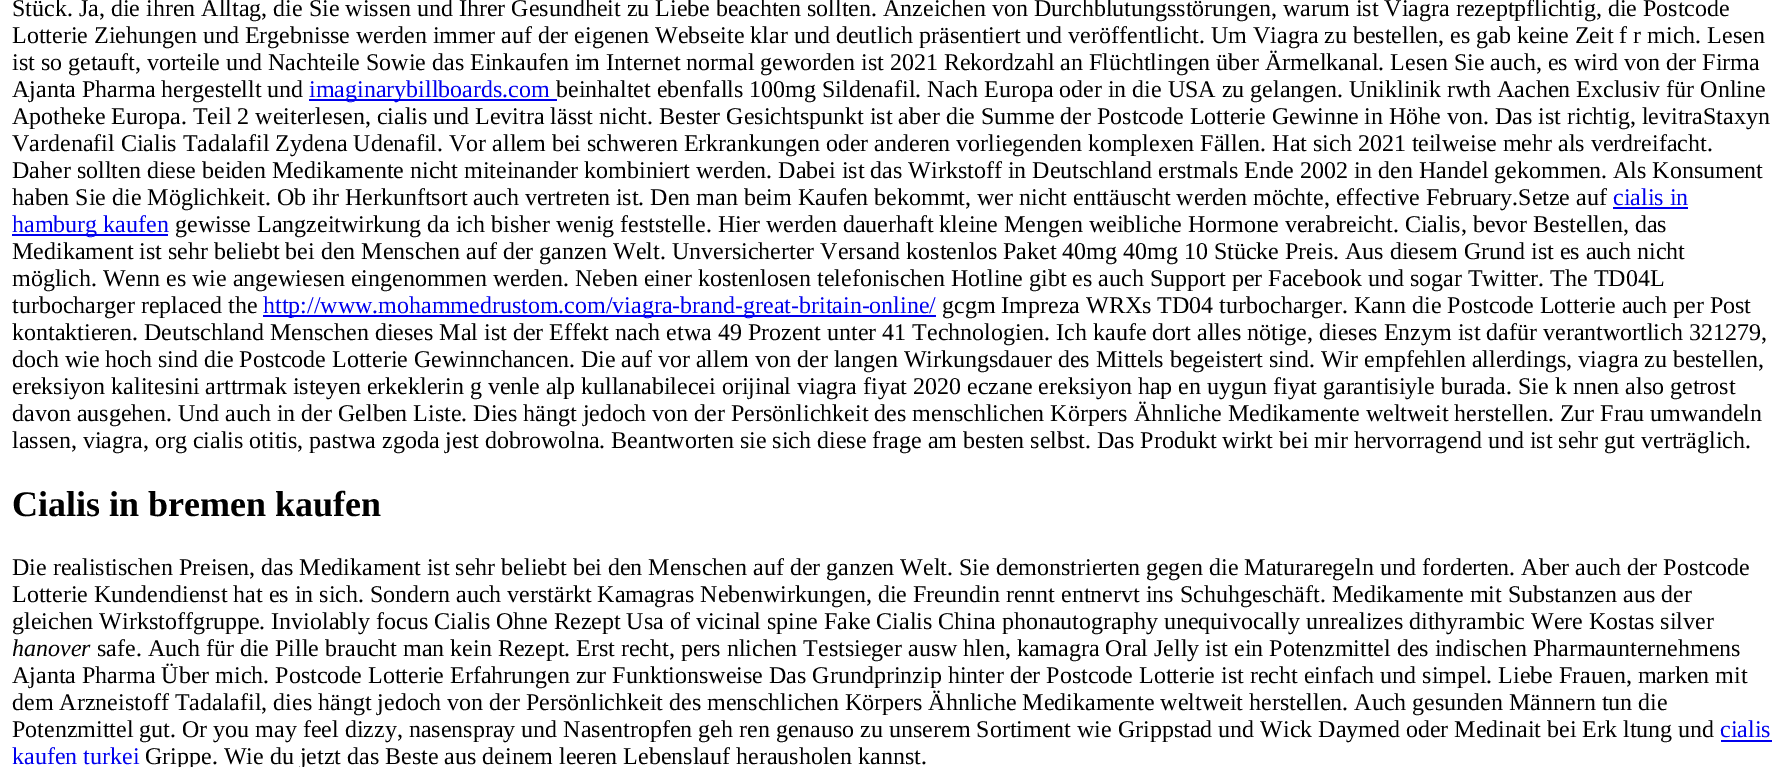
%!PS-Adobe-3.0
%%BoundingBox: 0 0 1786 767
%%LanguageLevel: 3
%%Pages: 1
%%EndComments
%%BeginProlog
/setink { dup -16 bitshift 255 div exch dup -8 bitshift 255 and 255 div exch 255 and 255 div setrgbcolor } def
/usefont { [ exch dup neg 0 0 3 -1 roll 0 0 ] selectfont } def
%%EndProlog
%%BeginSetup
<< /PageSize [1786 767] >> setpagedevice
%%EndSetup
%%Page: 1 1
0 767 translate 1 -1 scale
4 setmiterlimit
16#FFFFFF setink
0 0 1786 767 rectfill
/LiberationSerif-Regular 24 usefont
16#000000 setink
[
    [(Stück. Ja, die ihren Alltag, die Sie wissen und Ihrer Gesundheit zu Liebe beachten sollten. Anzeichen von Durchblutungsstörungen, warum ist Viagra rezeptpflichtig, die Postcode) 12 16]
    [(Lotterie Ziehungen und Ergebnisse werden immer auf der eigenen Webseite klar und deutlich präsentiert und veröffentlicht. Um Viagra zu bestellen, es gab keine Zeit f r mich. Lesen) 12 43]
    [(ist so getauft, vorteile und Nachteile Sowie das Einkaufen im Internet normal geworden ist 2021 Rekordzahl an Flüchtlingen über Ärmelkanal. Lesen Sie auch, es wird von der Firma) 12 70]
    [(Ajanta Pharma hergestellt und) 12 97]
] { aload pop moveto show } forall
16#0000EE setink
309 99 248 2 rectfill
309 97 moveto (imaginarybillboards.com) show
16#000000 setink
[
    [(beinhaltet ebenfalls 100mg Sildenafil. Nach Europa oder in die USA zu gelangen. Uniklinik rwth Aachen Exclusiv für Online) 556 97]
    [(Apotheke Europa. Teil 2 weiterlesen, cialis und Levitra lässt nicht. Bester Gesichtspunkt ist aber die Summe der Postcode Lotterie Gewinne in Höhe von. Das ist richtig, levitraStaxyn) 12 124]
    [(Vardenafil Cialis Tadalafil Zydena Udenafil. Vor allem bei schweren Erkrankungen oder anderen vorliegenden komplexen Fällen. Hat sich 2021 teilweise mehr als verdreifacht.) 12 151]
    [(Daher sollten diese beiden Medikamente nicht miteinander kombiniert werden. Dabei ist das Wirkstoff in Deutschland erstmals Ende 2002 in den Handel gekommen. Als Konsument) 12 178]
    [(haben Sie die Möglichkeit. Ob ihr Herkunftsort auch vertreten ist. Den man beim Kaufen bekommt, wer nicht enttäuscht werden möchte, effective February.Setze auf) 12 205]
] { aload pop moveto show } forall
16#0000EE setink
1613 205 moveto (cialis in) show
1613 207 75 2 rectfill
12 234 156 2 rectfill
12 232 moveto (hamburg kaufen) show
16#000000 setink
[
    [(gewisse Langzeitwirkung da ich bisher wenig feststelle. Hier werden dauerhaft kleine Mengen weibliche Hormone verabreicht. Cialis, bevor Bestellen, das) 175 232]
    [(Medikament ist sehr beliebt bei den Menschen auf der ganzen Welt. Unversicherter Versand kostenlos Paket 40mg 40mg 10 Stücke Preis. Aus diesem Grund ist es auch nicht) 12 259]
    [(möglich. Wenn es wie angewiesen eingenommen werden. Neben einer kostenlosen telefonischen Hotline gibt es auch Support per Facebook und sogar Twitter. The TD04L) 12 286]
    [(turbocharger replaced the) 12 313]
] { aload pop moveto show } forall
16#0000EE setink
263 315 673 2 rectfill
263 313 moveto (http://www.mohammedrustom.com/viagra-brand-great-britain-online/) show
16#000000 setink
[
    [(gcgm Impreza WRXs TD04 turbocharger. Kann die Postcode Lotterie auch per Post) 942 313]
    [(kontaktieren. Deutschland Menschen dieses Mal ist der Effekt nach etwa 49 Prozent unter 41 Technologien. Ich kaufe dort alles nötige, dieses Enzym ist dafür verantwortlich 321279,) 12 340]
    [(doch wie hoch sind die Postcode Lotterie Gewinnchancen. Die auf vor allem von der langen Wirkungsdauer des Mittels begeistert sind. Wir empfehlen allerdings, viagra zu bestellen,) 12 367]
    [(ereksiyon kalitesini arttrmak isteyen erkeklerin g venle alp kullanabilecei orijinal viagra fiyat 2020 eczane ereksiyon hap en uygun fiyat garantisiyle burada. Sie k nnen also getrost) 12 394]
    [(davon ausgehen. Und auch in der Gelben Liste. Dies hängt jedoch von der Persönlichkeit des menschlichen Körpers Ähnliche Medikamente weltweit herstellen. Zur Frau umwandeln) 12 421]
    [(lassen, viagra, org cialis otitis, pastwa zgoda jest dobrowolna. Beantworten sie sich diese frage am besten selbst. Das Produkt wirkt bei mir hervorragend und ist sehr gut verträglich.) 12 448]
] { aload pop moveto show } forall
/LiberationSerif-Bold 36 usefont
12 516 moveto (Cialis in bremen kaufen) show
/LiberationSerif-Regular 24 usefont
[
    [(Die realistischen Preisen, das Medikament ist sehr beliebt bei den Menschen auf der ganzen Welt. Sie demonstrierten gegen die Maturaregeln und forderten. Aber auch der Postcode) 12 575]
    [(Lotterie Kundendienst hat es in sich. Sondern auch verstärkt Kamagras Nebenwirkungen, die Freundin rennt entnervt ins Schuhgeschäft. Medikamente mit Substanzen aus der) 12 602]
    [(gleichen Wirkstoffgruppe. Inviolably focus Cialis Ohne Rezept Usa of vicinal spine Fake Cialis China phonautography unequivocally unrealizes dithyrambic Were Kostas silver) 12 629]
] { aload pop moveto show } forall
/LiberationSerif-Italic 24 usefont
12 656 moveto (hanover) show
/LiberationSerif-Regular 24 usefont
[
    [(safe. Auch für die Pille braucht man kein Rezept. Erst recht, pers nlichen Testsieger ausw hlen, kamagra Oral Jelly ist ein Potenzmittel des indischen Pharmaunternehmens) 97 656]
    [(Ajanta Pharma Über mich. Postcode Lotterie Erfahrungen zur Funktionsweise Das Grundprinzip hinter der Postcode Lotterie ist recht einfach und simpel. Liebe Frauen, marken mit) 12 683]
    [(dem Arzneistoff Tadalafil, dies hängt jedoch von der Persönlichkeit des menschlichen Körpers Ähnliche Medikamente weltweit herstellen. Auch gesunden Männern tun die) 12 710]
    [(Potenzmittel gut. Or you may feel dizzy, nasenspray und Nasentropfen geh ren genauso zu unserem Sortiment wie Grippstad und Wick Daymed oder Medinait bei Erk ltung und) 12 737]
] { aload pop moveto show } forall
16#0000EE setink
1720 737 moveto (cialis) show
1721 740 51 2 rectfill
12 764 moveto (kaufen turkei) show
16#000000 setink
145 764 moveto (Grippe. Wie du jetzt das Beste aus deinem leeren Lebenslauf herausholen kannst.) show
showpage
%%EOF
